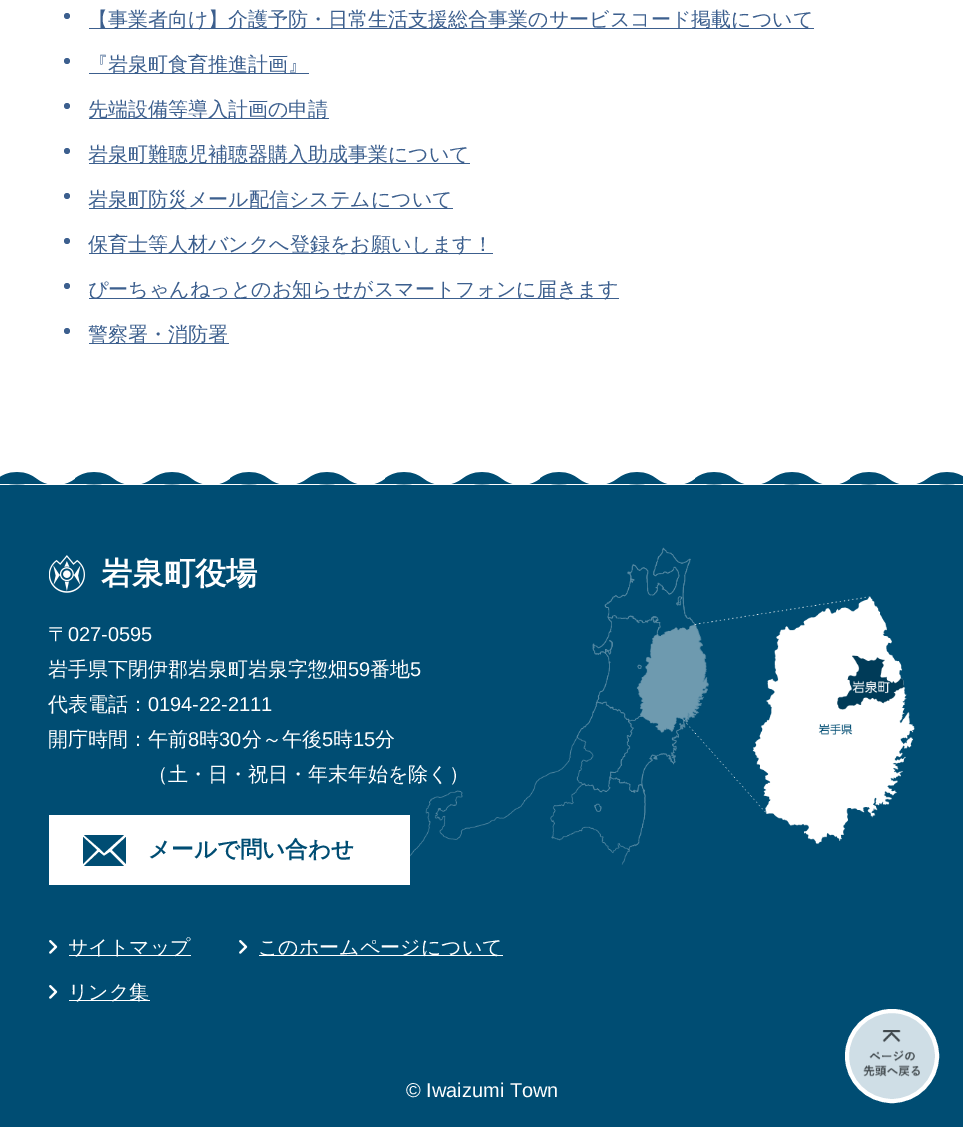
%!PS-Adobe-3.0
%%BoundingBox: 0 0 963 1127
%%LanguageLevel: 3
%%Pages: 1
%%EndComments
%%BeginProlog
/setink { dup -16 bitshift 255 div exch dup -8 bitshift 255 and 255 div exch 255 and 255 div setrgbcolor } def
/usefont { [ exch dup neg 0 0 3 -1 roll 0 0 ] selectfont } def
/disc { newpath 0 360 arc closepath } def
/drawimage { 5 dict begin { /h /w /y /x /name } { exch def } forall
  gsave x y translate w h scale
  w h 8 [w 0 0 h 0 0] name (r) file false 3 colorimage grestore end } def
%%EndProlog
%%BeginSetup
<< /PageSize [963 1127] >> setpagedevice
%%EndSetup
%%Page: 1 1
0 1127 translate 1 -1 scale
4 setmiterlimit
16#FFFFFF setink
0 0 963 1127 rectfill
16#3C5F8E setink
67 16 3 disc fill
89 28 725 1 rectfill
/WenQuanYiZenHei-Medium 20 usefont
88 26 moveto (【事業者向け】介護予防・日常生活支援総合事業のサービスコード掲載について) show
67 61 3 disc fill
89 73 220 1 rectfill
88 71 moveto (『岩泉町食育推進計画』) show
67 106 3 disc fill
89 118 240 1 rectfill
88 116 moveto (先端設備等導入計画の申請) show
67 151 3 disc fill
89 163 381 1 rectfill
88 161 moveto (岩泉町難聴児補聴器購入助成事業について) show
67 196 3 disc fill
89 208 364 1 rectfill
88 206 moveto (岩泉町防災メール配信システムについて) show
67 241 3 disc fill
89 253 404 1 rectfill
88 251 moveto (保育士等人材バンクへ登録をお願いします！) show
67 286 3 disc fill
89 298 530 1 rectfill
88 296 moveto (ぴーちゃんねっとのお知らせがスマートフォンに届きます) show
67 331 3 disc fill
89 343 140 1 rectfill
88 341 moveto (警察署・消防署) show
16#004D73 setink
0 485 963 642 rectfill
(img1.raw) 0 472 963 13 drawimage
(img2.raw) 410 547 505 318 drawimage
(img3.raw) 49 555 36 38 drawimage
/WenQuanYiZenHei-Bold 31.25 usefont
16#FFFFFF setink
101 584 moveto (岩泉町役場) show
/WenQuanYiZenHei-Medium 20 usefont
48 641 moveto (〒) show
/LiberationSans-Regular 20 usefont
68 641 moveto (027-0595) show
/WenQuanYiZenHei-Medium 20 usefont
48 676 moveto (岩手県下閉伊郡岩泉町岩泉字惣畑) show
/LiberationSans-Regular 20 usefont
348 676 moveto (59) show
/WenQuanYiZenHei-Medium 20 usefont
370 676 moveto (番地) show
/LiberationSans-Regular 20 usefont
410 676 moveto (5) show
/WenQuanYiZenHei-Medium 20 usefont
48 711 moveto (代表電話：) show
/LiberationSans-Regular 20 usefont
148 711 moveto (0194-22-2111) show
/WenQuanYiZenHei-Medium 20 usefont
48 746 moveto (開庁時間：午前) show
/LiberationSans-Regular 20 usefont
188 746 moveto (8) show
/WenQuanYiZenHei-Medium 20 usefont
199 746 moveto (時) show
/LiberationSans-Regular 20 usefont
219 746 moveto (30) show
/WenQuanYiZenHei-Medium 20 usefont
242 746 moveto (分～午後) show
/LiberationSans-Regular 20 usefont
322 746 moveto (5) show
/WenQuanYiZenHei-Medium 20 usefont
333 746 moveto (時) show
/LiberationSans-Regular 20 usefont
353 746 moveto (15) show
/WenQuanYiZenHei-Medium 20 usefont
375 746 moveto (分) show
148 781 moveto (（土・日・祝日・年末年始を除く）) show
49 815 361 70 rectfill
gsave
83 835 43 31 rectclip
16#004D73 setink
82 863 moveto 83 837 lineto 97 850 lineto 83 864 lineto closepath 84 835 moveto 124 835 lineto 104 853 lineto 99 848 lineto closepath 84 866 moveto 99 852 lineto 104 856 lineto 110 852 lineto 124 866 lineto closepath 112 850 moveto 126 837 lineto 126 864 lineto closepath fill
grestore
/WenQuanYiZenHei-Bold 22.5 usefont
16#004D73 setink
148 857 moveto (メールで問い合わせ) show
(img4.raw) 49 940 9 14 drawimage
16#FFFFFF setink
69 955 122 1 rectfill
/WenQuanYiZenHei-Medium 20 usefont
68 954 moveto (サイトマップ) show
(img4.raw) 239 940 9 14 drawimage
259 955 244 1 rectfill
258 954 moveto (このホームページについて) show
(img4.raw) 49 985 9 14 drawimage
69 1000 81 1 rectfill
68 999 moveto (リンク集) show
/LiberationSans-Regular 20 usefont
406 1097 moveto (© Iwaizumi Town) show
16#CFDEE6 setink
892 1056 45 disc gsave fill grestore
16#FFFFFF setink
4 setlinewidth
stroke
(img5.raw) 863 1030 57 47 drawimage
showpage
%%EOF
